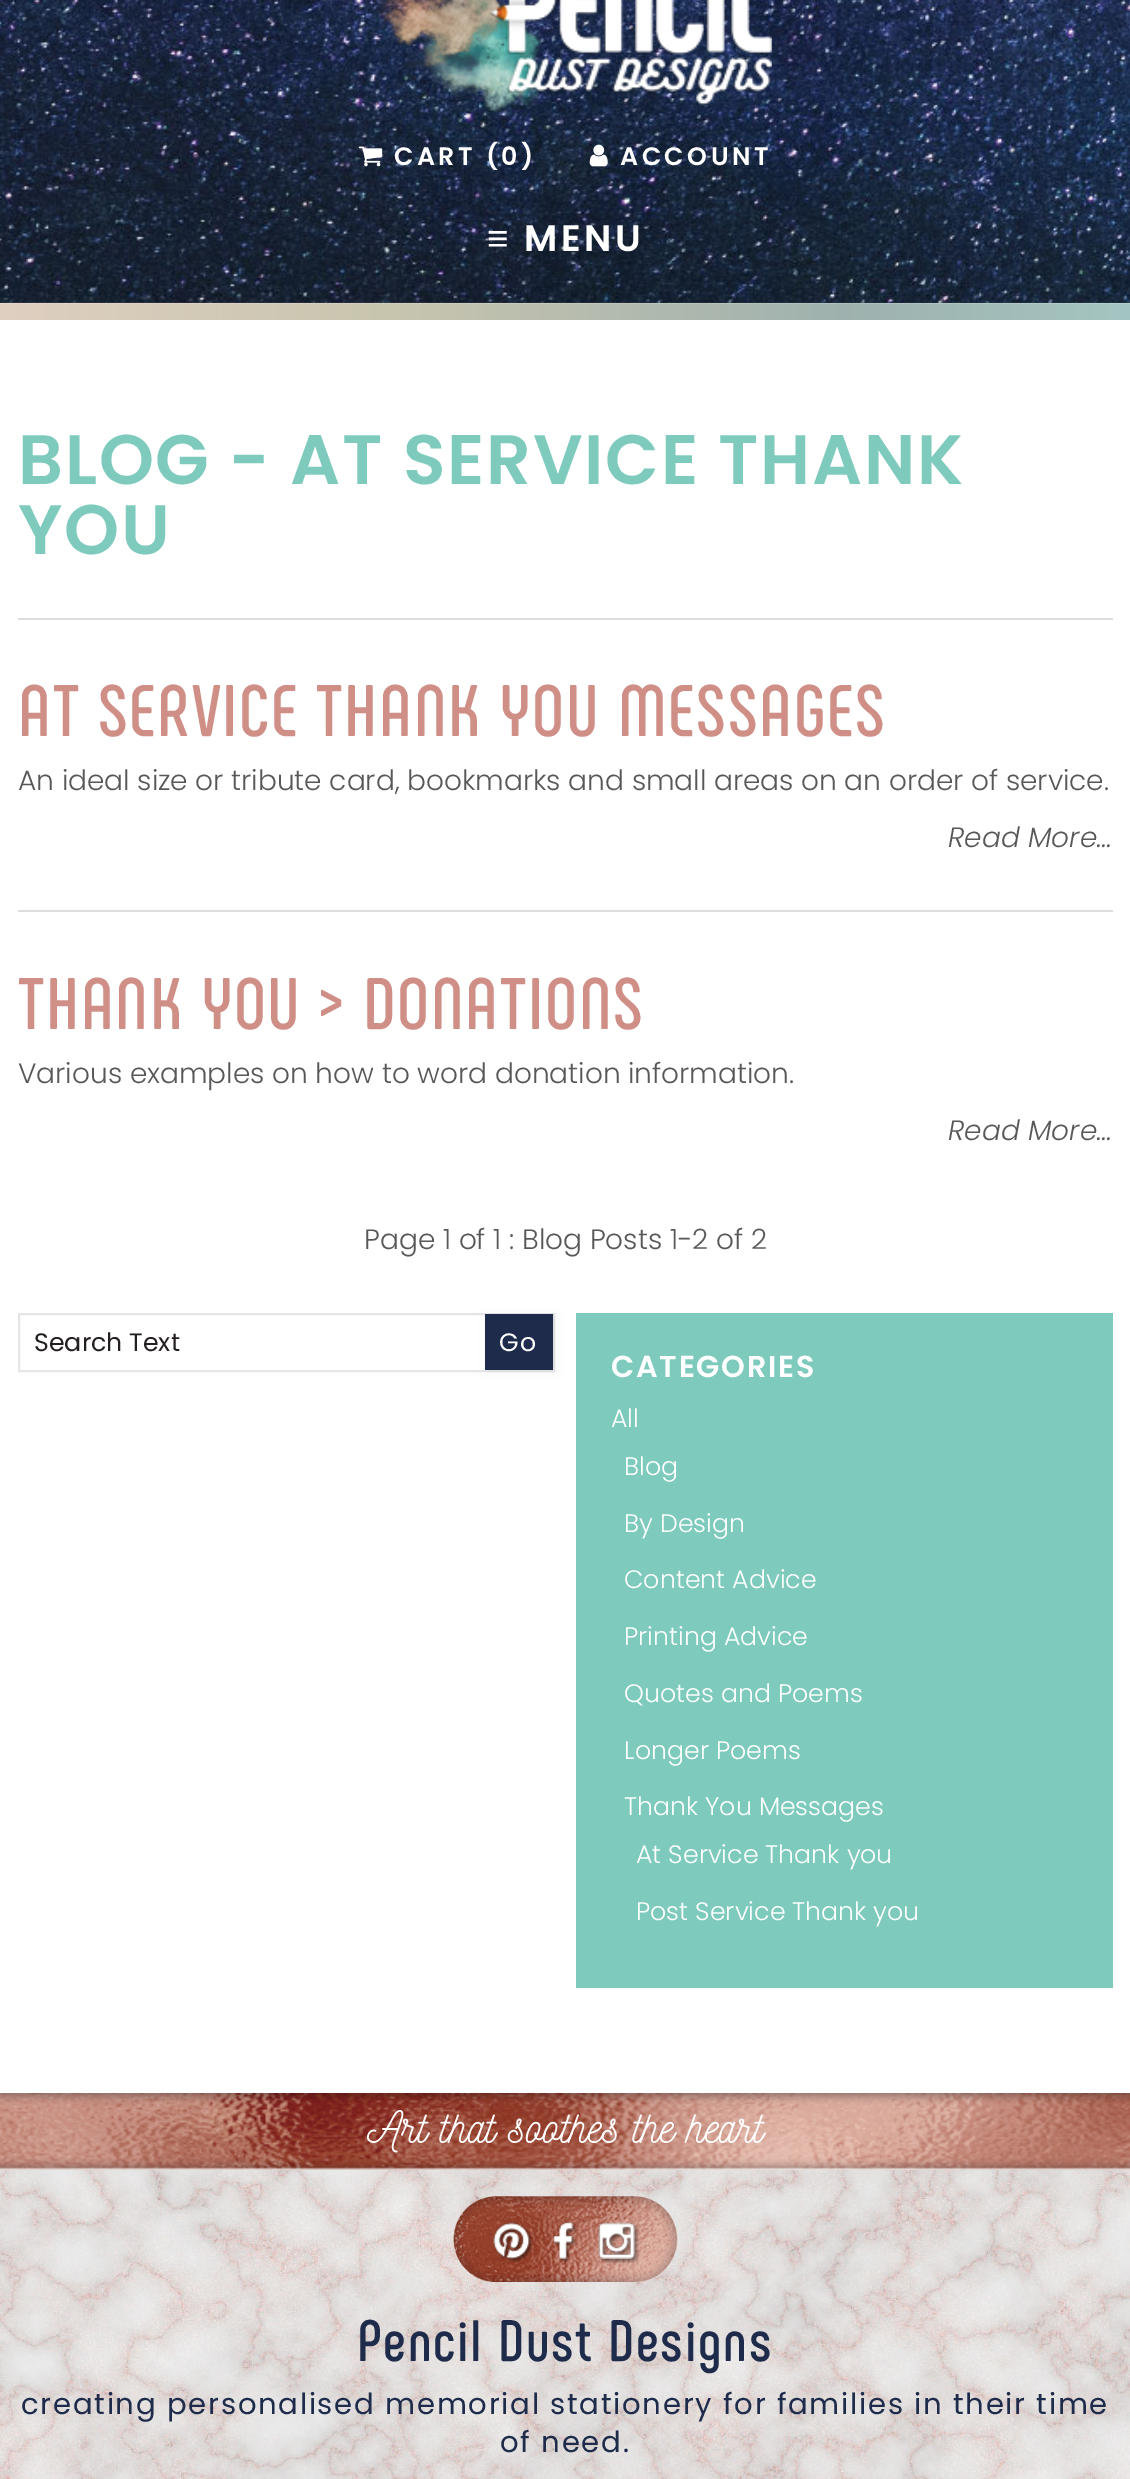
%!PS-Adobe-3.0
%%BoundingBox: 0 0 1130 2479
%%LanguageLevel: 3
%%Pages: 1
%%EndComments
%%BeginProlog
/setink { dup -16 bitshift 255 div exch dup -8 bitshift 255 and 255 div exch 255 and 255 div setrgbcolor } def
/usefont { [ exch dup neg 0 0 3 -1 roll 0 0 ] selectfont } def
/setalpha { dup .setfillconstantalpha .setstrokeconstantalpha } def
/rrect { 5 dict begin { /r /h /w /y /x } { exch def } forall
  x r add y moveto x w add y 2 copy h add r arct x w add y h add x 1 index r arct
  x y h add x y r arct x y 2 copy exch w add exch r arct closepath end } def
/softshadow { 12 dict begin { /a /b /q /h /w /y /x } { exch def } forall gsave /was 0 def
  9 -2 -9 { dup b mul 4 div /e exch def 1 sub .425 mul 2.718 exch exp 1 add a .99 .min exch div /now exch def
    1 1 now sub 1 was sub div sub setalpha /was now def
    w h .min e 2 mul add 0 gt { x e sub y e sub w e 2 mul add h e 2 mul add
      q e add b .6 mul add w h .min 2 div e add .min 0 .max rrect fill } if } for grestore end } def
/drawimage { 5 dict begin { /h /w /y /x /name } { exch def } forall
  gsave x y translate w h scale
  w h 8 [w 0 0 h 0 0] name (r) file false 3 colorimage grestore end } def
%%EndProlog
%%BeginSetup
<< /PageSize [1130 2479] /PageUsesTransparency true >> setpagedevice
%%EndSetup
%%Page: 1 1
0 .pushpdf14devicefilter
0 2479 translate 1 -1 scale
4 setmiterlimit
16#FFFFFF setink
0 0 1130 2479 rectfill
(img1.raw) 0 0 1130 303 drawimage
(img2.raw) 369 0 403 113 drawimage
(img3.raw) 358 146 25 21 drawimage
/Poppins-SemiBold 25.25 usefont
394 165 moveto 3.5 0 (CART \(0\)) ashow
(img4.raw) 589 144 19 23 drawimage
620 165 moveto 3.5 0 (ACCOUNT) ashow
/LiberationSans-Bold 37 usefont
487 251 moveto 3.5 0 (≡) ashow
/Poppins-SemiBold 37 usefont
524 251 moveto 3.5 0 (MENU) ashow
(img5.raw) 0 302 1130 18 drawimage
/Poppins-SemiBold 70 usefont
16#7ECBBD setink
18 484 moveto 1.75 0 (BLOG - AT SERVICE THANK) ashow
18 554 moveto 1.75 0 (YOU) ashow
16#DDDDDD setink
18 618 1095 2 rectfill
/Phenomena-Bold 72.75 usefont
16#CF8E86 setink
18 736 moveto 1.75 0 (AT SERVICE THANK YOU MESSAGES) ashow
/Poppins-Light 28 usefont
16#58585A setink
18 790 moveto (An ideal size or tribute card, bookmarks and small areas on an order of service.) show
/Poppins-LightItalic 28 usefont
948 847 moveto (Read More...) show
16#DDDDDD setink
18 910 1095 2 rectfill
/Phenomena-Bold 72.75 usefont
16#CF8E86 setink
18 1029 moveto 1.75 0 (THANK YOU > DONATIONS) ashow
/Poppins-Light 28 usefont
16#58585A setink
18 1083 moveto (Various examples on how to word donation information.) show
/Poppins-LightItalic 28 usefont
948 1140 moveto (Read More...) show
/Poppins-Light 28 usefont
364 1249 moveto (Page 1 of 1 : Blog Posts 1-2 of 2) show
16#E5E5E5 setink
2 setlinewidth
19 1314 535 57 rectstroke
/Poppins-Regular 25.25 usefont
16#231F20 setink
34 1351 moveto (Search Text) show
16#7F7F7F setink
487 1316 68 56 0 5 0.1 softshadow
16#1E2B4B setink
485 1314 68 56 rectfill
16#FFFFFF setink
499 1351 moveto 1.75 0 (Go) ashow
16#7ECBBD setink
576 1313 537 675 rectfill
/Poppins-SemiBold 30.25 usefont
16#FFFFFF setink
611 1377 moveto 1.75 0 (CATEGORIES) ashow
/Poppins-Light 25.25 usefont
[
    [(All) 611 1427]
    [(Blog) 624 1475]
    [(By Design) 624 1532]
    [(Content Advice) 624 1588]
    [(Printing Advice) 624 1645]
    [(Quotes and Poems) 624 1702]
    [(Longer Poems) 624 1759]
    [(Thank You Messages) 624 1815]
    [(At Service Thank you) 636 1863]
    [(Post Service Thank you) 636 1920]
] { aload pop moveto show } forall
(img6.raw) 0 2093 1130 77 drawimage
/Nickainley-Italic 44.75 usefont
367 2143 moveto (Art that soothes the heart) show
(img7.raw) 0 2170 1130 309 drawimage
(img8.raw) 453 2196 225 86 drawimage
(img9.raw) 493 2222 40 41 drawimage
(img10.raw) 552 2221 25 42 drawimage
(img11.raw) 598 2222 41 41 drawimage
/Phenomena-Bold 58.25 usefont
16#1E2B4B setink
357 2361 moveto 1.75 0 (Pencil Dust Designs) ashow
/Poppins-Regular 29.1 usefont
21 2414 moveto 1.75 0 (creating personalised memorial stationery for families in their time) ashow
500 2452 moveto 1.75 0 (of need.) ashow
.poppdf14devicefilter showpage
%%EOF
